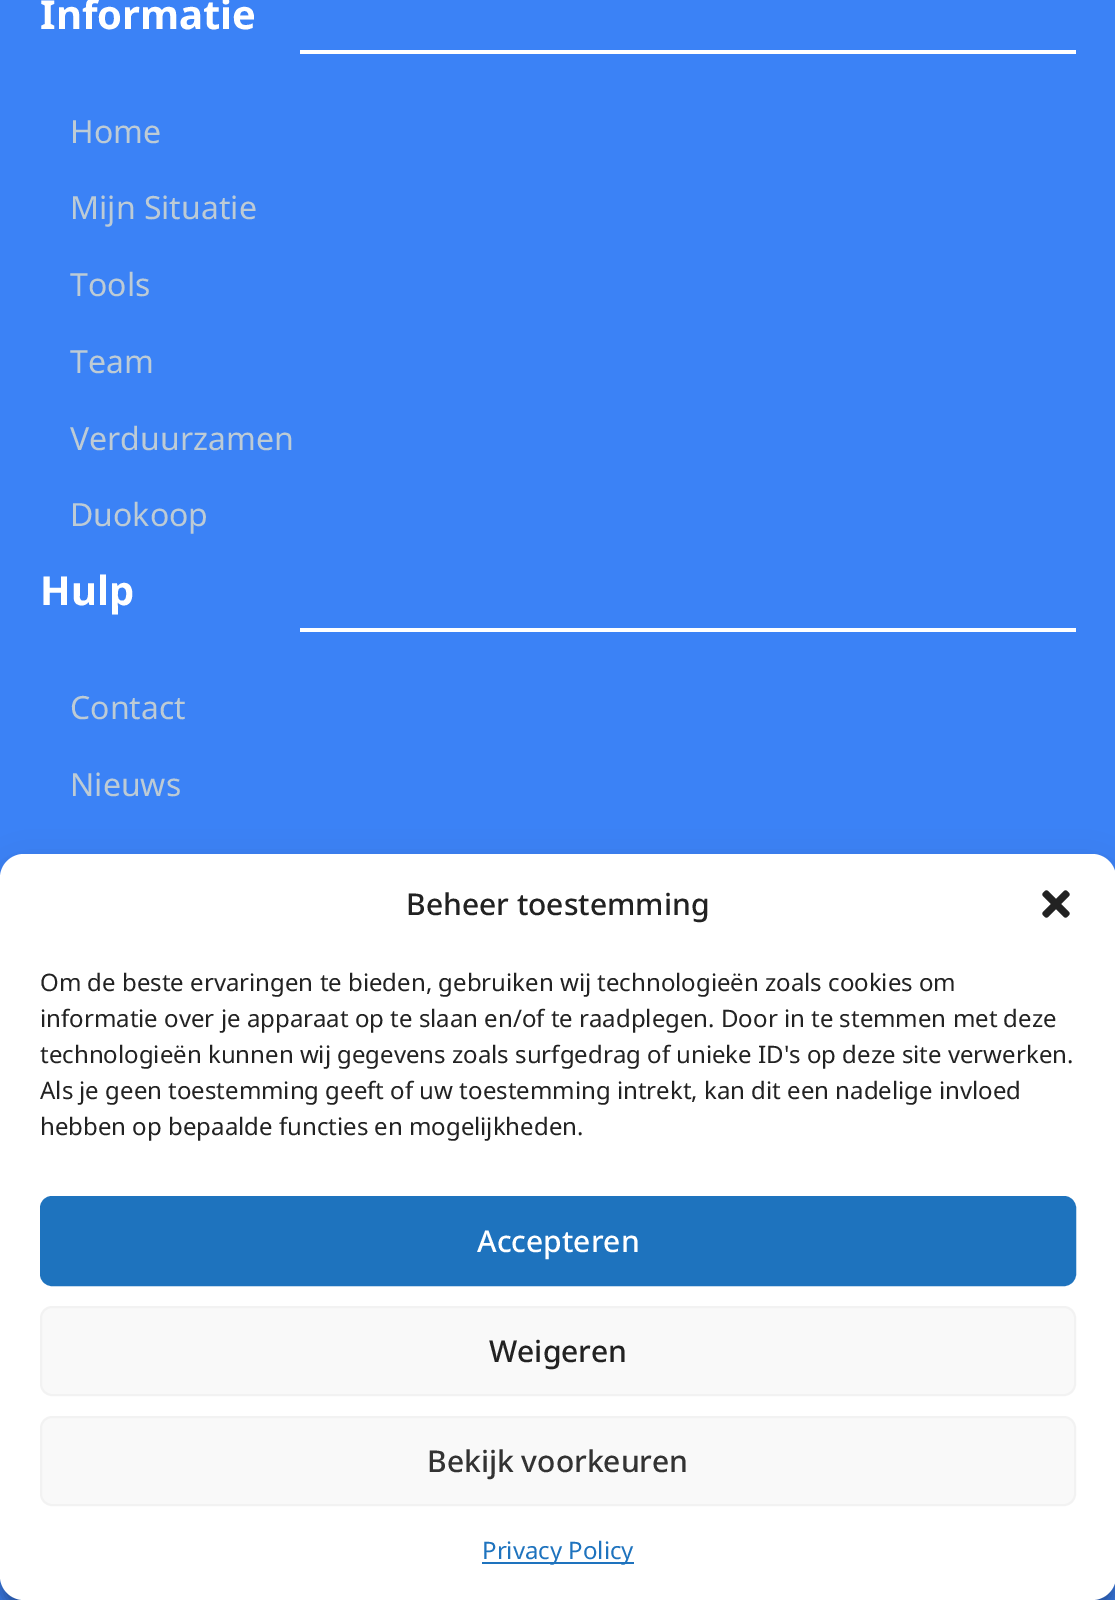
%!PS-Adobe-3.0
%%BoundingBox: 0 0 1115 1600
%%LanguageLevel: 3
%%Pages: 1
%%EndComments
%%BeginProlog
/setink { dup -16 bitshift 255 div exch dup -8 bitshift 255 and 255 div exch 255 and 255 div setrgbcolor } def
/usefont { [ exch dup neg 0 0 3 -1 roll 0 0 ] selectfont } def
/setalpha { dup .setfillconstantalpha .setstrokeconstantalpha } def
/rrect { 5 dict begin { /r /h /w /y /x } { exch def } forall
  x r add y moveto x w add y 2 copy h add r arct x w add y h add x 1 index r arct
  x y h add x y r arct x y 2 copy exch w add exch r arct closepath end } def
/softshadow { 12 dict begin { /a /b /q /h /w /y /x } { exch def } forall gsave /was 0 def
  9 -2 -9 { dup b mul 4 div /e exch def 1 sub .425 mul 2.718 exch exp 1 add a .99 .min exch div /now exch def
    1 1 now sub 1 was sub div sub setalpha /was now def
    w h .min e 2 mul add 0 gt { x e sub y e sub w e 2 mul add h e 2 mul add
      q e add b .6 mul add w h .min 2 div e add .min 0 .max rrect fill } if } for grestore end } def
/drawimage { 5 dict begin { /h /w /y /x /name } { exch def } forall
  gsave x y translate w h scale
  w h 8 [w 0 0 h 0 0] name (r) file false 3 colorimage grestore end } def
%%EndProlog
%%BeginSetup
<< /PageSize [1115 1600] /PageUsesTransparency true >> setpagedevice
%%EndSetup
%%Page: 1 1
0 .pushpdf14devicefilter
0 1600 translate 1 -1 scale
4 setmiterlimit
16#3B82F6 setink
0 0 1115 1600 rectfill
/NotoSans-Bold 40 usefont
16#FFFFFF setink
40 29 moveto (Informatie) show
300 50 776 4 rectfill
/NotoSans-Regular 32 usefont
16#BDCBD5 setink
[
    [(Home) 70 143]
    [(Mijn Situatie) 70 219]
    [(Tools) 70 296]
    [(Team) 70 373]
    [(Verduurzamen) 70 450]
    [(Duokoop) 70 526]
] { aload pop moveto show } forall
/NotoSans-Bold 40 usefont
16#FFFFFF setink
40 605 moveto (Hulp) show
300 628 776 4 rectfill
/NotoSans-Regular 32 usefont
16#BDCBD5 setink
70 719 moveto (Contact) show
70 796 moveto (Nieuws) show
16#000000 setink
0 866 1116 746 24 6 0.23 softshadow
0 874 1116 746 24 20 0.19 softshadow
16#FFFFFF setink
0 854 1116 746 24 rrect fill
/NotoSans-Medium 30 usefont
16#222222 setink
406 915 moveto (Beheer toestemming) show
(img1.raw) 1042 890 28 28 drawimage
/NotoSans-Regular 24 usefont
[
    [(Om de beste ervaringen te bieden, gebruiken wij technologieën zoals cookies om) 40 991]
    [(informatie over je apparaat op te slaan en/of te raadplegen. Door in te stemmen met deze) 40 1027]
    [(technologieën kunnen wij gegevens zoals surfgedrag of unieke ID's op deze site verwerken.) 40 1063]
    [(Als je geen toestemming geeft of uw toestemming intrekt, kan dit een nadelige invloed) 40 1099]
    [(hebben op bepaalde functies en mogelijkheden.) 40 1135]
] { aload pop moveto show } forall
16#1E73BE setink
41 1197 1034 88 11 rrect gsave fill grestore
2 setlinewidth
stroke
/NotoSans-Medium 30 usefont
16#FFFFFF setink
477 1252 moveto (Accepteren) show
16#F9F9F9 setink
41 1307 1034 88 11 rrect gsave fill grestore
16#F2F2F2 setink
stroke
16#222222 setink
489 1362 moveto (Weigeren) show
16#F9F9F9 setink
41 1417 1034 88 11 rrect gsave fill grestore
16#F2F2F2 setink
stroke
16#333333 setink
427 1472 moveto (Bekijk voorkeuren) show
16#1E73BE setink
482 1562 152 2 rectfill
/NotoSans-Regular 24 usefont
482 1559 moveto (Privacy Policy) show
.poppdf14devicefilter showpage
%%EOF
